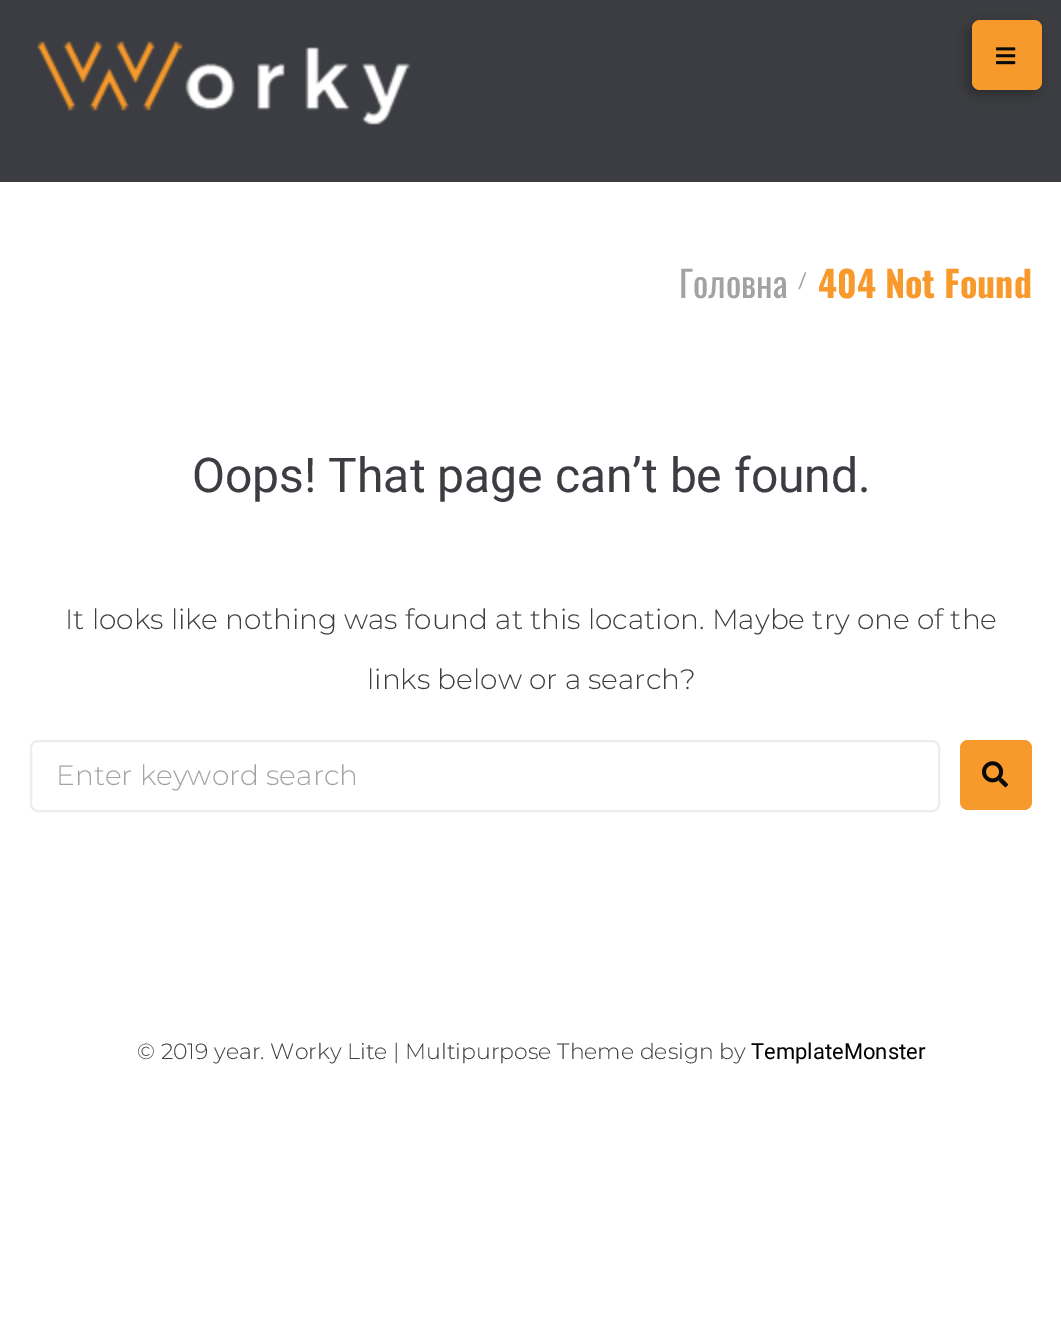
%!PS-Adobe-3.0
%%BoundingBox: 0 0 1061 1337
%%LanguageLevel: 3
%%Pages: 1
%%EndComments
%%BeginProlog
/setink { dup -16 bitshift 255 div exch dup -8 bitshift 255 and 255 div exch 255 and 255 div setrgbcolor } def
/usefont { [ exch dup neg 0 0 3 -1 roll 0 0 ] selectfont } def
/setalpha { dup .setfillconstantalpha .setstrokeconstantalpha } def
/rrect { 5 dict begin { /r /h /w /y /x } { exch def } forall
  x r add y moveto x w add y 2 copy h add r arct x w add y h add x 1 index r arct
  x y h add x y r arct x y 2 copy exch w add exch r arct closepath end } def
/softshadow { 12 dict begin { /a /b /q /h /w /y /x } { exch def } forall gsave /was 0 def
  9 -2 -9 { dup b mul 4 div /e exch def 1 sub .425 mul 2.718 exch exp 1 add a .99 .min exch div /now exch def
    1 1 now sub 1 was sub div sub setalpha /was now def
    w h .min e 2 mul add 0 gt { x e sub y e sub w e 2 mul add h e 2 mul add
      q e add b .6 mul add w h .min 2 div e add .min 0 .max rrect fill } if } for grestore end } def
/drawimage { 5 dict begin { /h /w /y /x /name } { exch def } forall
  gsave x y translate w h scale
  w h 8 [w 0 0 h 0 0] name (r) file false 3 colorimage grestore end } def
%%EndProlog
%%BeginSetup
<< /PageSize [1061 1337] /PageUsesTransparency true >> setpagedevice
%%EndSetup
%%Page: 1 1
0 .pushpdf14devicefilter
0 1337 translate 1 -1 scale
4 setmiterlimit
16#FFFFFF setink
0 0 1061 1337 rectfill
16#3B3D42 setink
0 0 1061 182 rectfill
(img1.raw) 37 41 374 84 drawimage
16#000000 setink
968 24 70 70 8 7 0.3 softshadow
16#F7992B setink
972 20 70 70 8 rrect fill
(img2.raw) 996 47 20 18 drawimage
/Oswald-Regular 36 usefont
16#A1A2A4 setink
679 298 moveto (Головна) show
/Roboto-Regular 22 usefont
798 288 moveto (/) show
/Oswald-Bold 36 usefont
16#F7992B setink
818 298 moveto (404 Not Found) show
/Roboto-Regular 48 usefont
16#3B3D42 setink
192 492 moveto (Oops! That page can’t be found.) show
/Montserrat-Light 28 usefont
65 629 moveto (It looks like nothing was found at this location. Maybe try one of the) show
367 689 moveto (links below or a search?) show
16#EBECED setink
2 setlinewidth
31 741 908 70 7 rrect stroke
16#A1A2A4 setink
56 785 moveto (Enter keyword search) show
16#F7992B setink
960 740 72 70 8 rrect fill
(img3.raw) 982 761 26 27 drawimage
/Montserrat-Light 22 usefont
16#3B3D42 setink
137 1059 moveto (© 2019 year. Worky Lite | Multipurpose Theme design by) show
/Roboto-Regular 22 usefont
16#000000 setink
751 1059 moveto (TemplateMonster) show
.poppdf14devicefilter showpage
%%EOF
